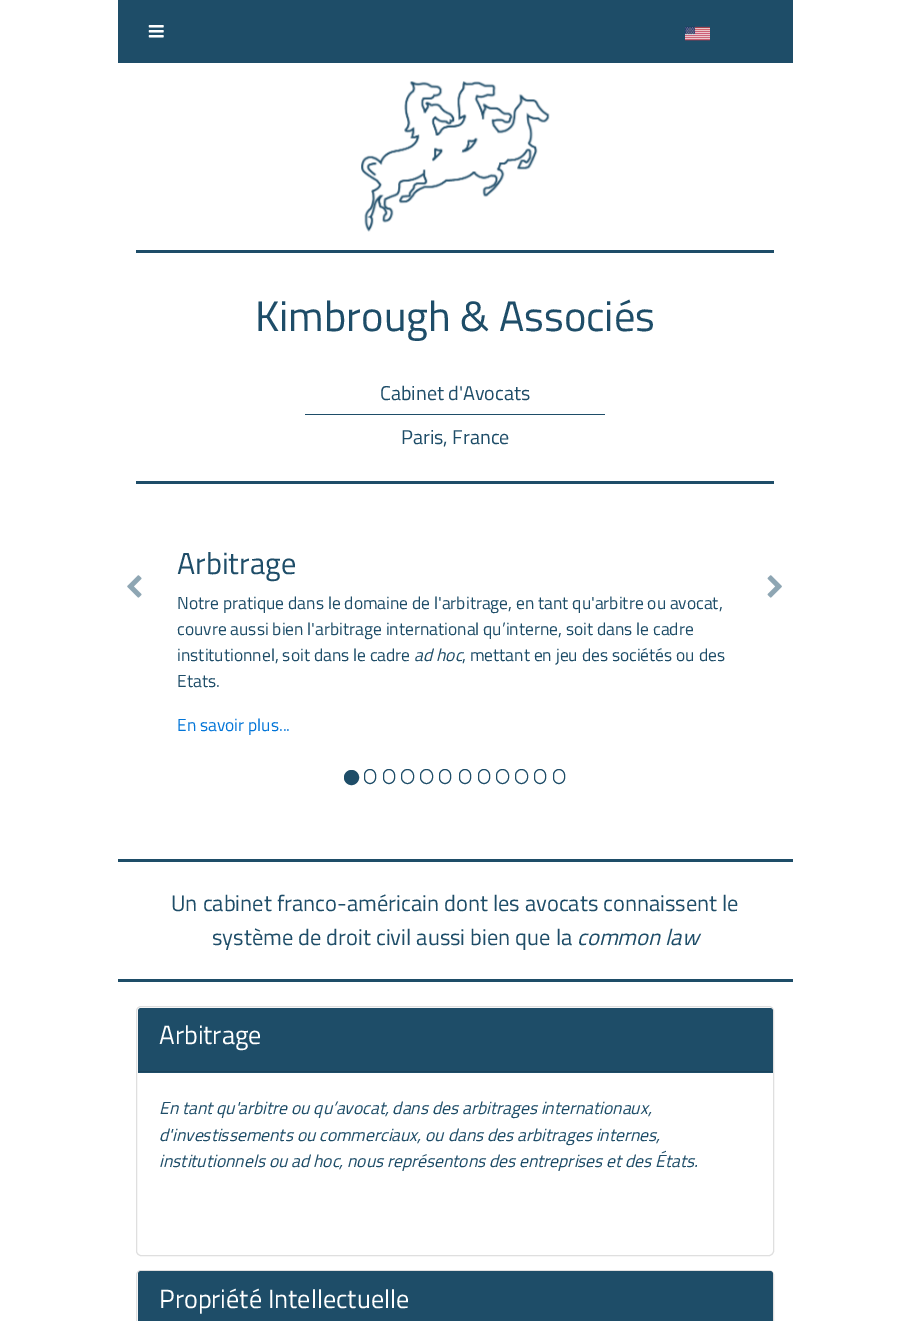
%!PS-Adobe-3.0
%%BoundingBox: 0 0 910 1321
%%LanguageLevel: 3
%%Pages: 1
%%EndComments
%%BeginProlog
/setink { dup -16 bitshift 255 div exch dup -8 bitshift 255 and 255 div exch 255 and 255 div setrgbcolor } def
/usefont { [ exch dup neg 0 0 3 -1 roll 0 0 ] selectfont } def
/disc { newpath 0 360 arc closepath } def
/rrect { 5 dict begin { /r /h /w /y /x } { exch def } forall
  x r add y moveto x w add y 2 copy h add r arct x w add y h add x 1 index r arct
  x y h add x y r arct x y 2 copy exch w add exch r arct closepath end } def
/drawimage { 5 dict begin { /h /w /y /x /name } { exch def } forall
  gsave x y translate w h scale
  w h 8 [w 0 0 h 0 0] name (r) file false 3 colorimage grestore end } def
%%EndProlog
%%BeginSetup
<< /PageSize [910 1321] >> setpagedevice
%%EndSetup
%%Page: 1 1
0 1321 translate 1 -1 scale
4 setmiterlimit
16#FFFFFF setink
0 0 910 1321 rectfill
16#1E4D68 setink
118 0 675 63 rectfill
(img1.raw) 148 25 16 13 drawimage
(img2.raw) 685 26 25 15 drawimage
(img3.raw) 361 81 189 151 drawimage
136 250 638 3 rectfill
136 481 638 3 rectfill
/TitilliumWeb-Regular 42.5 usefont
255 331 moveto (Kimbrough & Associés) show
305 414 300 1 rectfill
/TitilliumWeb-Regular 20 usefont
380 400 moveto (Cabinet d'Avocats) show
401 444 moveto (Paris, France) show
(img4.raw) 127 575 15 23 drawimage
/TitilliumWeb-Regular 30.5 usefont
177 574 moveto (Arbitrage) show
/TitilliumWeb-Regular 17.5 usefont
[
    [(Notre pratique dans le domaine de l'arbitrage, en tant qu'arbitre ou avocat,) 177 609]
    [(couvre aussi bien l'arbitrage international qu’interne, soit dans le cadre) 177 635]
    [(institutionnel, soit dans le cadre) 177 661]
] { aload pop moveto show } forall
/TitilliumWeb-Italic 17.5 usefont
414 661 moveto (ad hoc) show
/TitilliumWeb-Regular 17.5 usefont
462 661 moveto (, mettant en jeu des sociétés ou des) show
177 687 moveto (Etats.) show
16#0275D8 setink
177 731 moveto (En savoir plus...) show
(img5.raw) 767 575 15 23 drawimage
16#1E4D68 setink
351.5 777.5 7 disc gsave fill grestore
stroke
364.5 769.5 11 14 5.5 rrect stroke
383.5 769.5 11 14 5.5 rrect stroke
401.5 769.5 12 14 6 rrect stroke
420.5 769.5 12 14 6 rrect stroke
439.5 769.5 11 14 5.5 rrect stroke
459.5 769.5 11 14 5.5 rrect stroke
478.5 769.5 11 14 5.5 rrect stroke
496.5 769.5 12 14 6 rrect stroke
515.5 769.5 12 14 6 rrect stroke
534.5 769.5 11 14 5.5 rrect stroke
553.5 769.5 11 14 5.5 rrect stroke
118 859 675 3 rectfill
118 979 675 3 rectfill
/TitilliumWeb-Regular 22.5 usefont
171 911 moveto (Un cabinet franco-américain dont les avocats connaissent le) show
212 945 moveto (système de droit civil aussi bien que la) show
/TitilliumWeb-Italic 22.5 usefont
577 945 moveto (common law) show
16#DFDFDF setink
136.5 1006.5 637 249 4.5 rrect stroke
16#1E4D68 setink
141 1008 moveto 770 1008 lineto 771.5 1008 773 1009.5 773 1011 curveto 773 1073 lineto 138 1073 lineto 138 1011 lineto 138 1009.5 139.5 1008 141 1008 curveto closepath fill
16#1A435B setink
138 1071 635 1 rectfill
/TitilliumWeb-Regular 26.25 usefont
16#FFFFFF setink
159 1044 moveto (Arbitrage) show
/TitilliumWeb-Italic 17.5 usefont
16#1E4D68 setink
[
    [(En tant qu'arbitre ou qu’avocat, dans des arbitrages internationaux,) 159 1114]
    [(d'investissements ou commerciaux, ou dans des arbitrages internes,) 159 1141]
    [(institutionnels ou ad hoc, nous représentons des entreprises et des États.) 159 1167]
] { aload pop moveto show } forall
16#DFDFDF setink
136.5 1270.5 637 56 4.5 rrect stroke
16#1E4D68 setink
141 1271 moveto 770 1271 lineto 771.5 1271 773 1272.5 773 1274 curveto 773 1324 lineto 138 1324 lineto 138 1274 lineto 138 1272.5 139.5 1271 141 1271 curveto closepath fill
/TitilliumWeb-Regular 26.25 usefont
16#FFFFFF setink
159 1308 moveto (Propriété Intellectuelle) show
showpage
%%EOF
